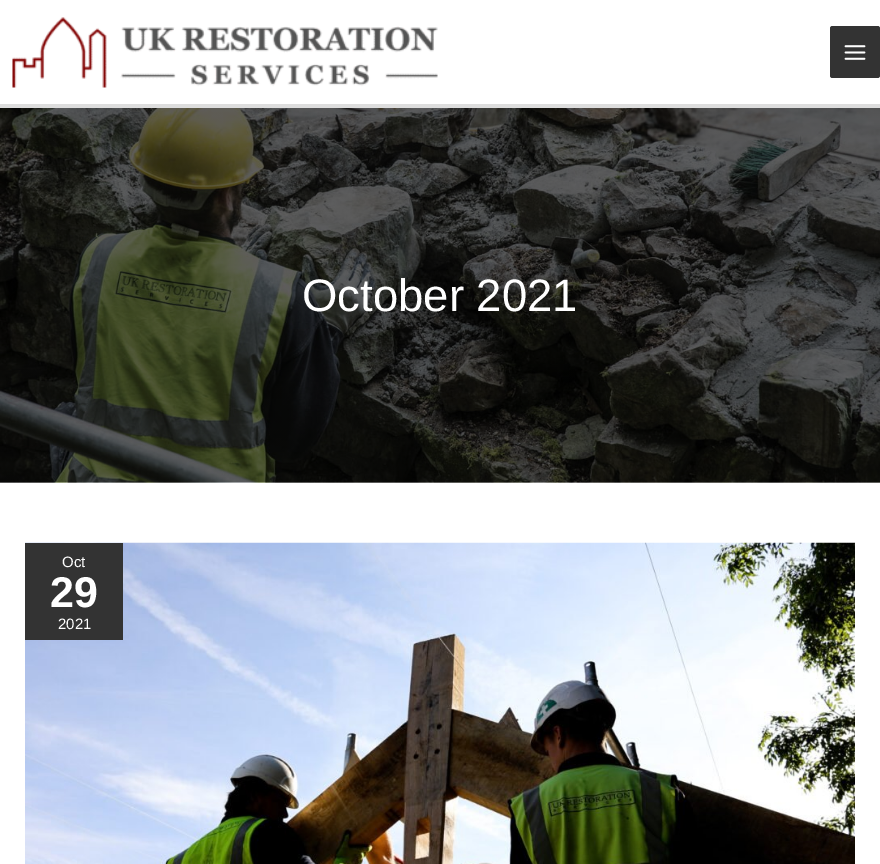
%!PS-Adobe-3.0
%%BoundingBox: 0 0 880 864
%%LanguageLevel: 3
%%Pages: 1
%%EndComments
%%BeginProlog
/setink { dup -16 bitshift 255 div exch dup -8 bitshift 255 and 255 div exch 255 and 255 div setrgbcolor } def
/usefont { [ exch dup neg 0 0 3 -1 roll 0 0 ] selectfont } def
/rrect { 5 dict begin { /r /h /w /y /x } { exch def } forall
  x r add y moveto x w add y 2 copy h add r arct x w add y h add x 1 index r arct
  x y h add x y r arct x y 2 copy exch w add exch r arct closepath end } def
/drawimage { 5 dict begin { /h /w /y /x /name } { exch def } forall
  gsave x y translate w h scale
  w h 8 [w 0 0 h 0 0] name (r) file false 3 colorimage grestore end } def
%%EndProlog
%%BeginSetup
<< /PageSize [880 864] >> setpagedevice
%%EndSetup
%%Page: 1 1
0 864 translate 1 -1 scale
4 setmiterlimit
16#FFFFFF setink
0 0 880 864 rectfill
16#DDDDDD setink
0 104 880 4 rectfill
(img1.raw) 12 17 426 71 drawimage
16#333333 setink
830 26 50 52 2.5 rrect fill
(img2.raw) 844 45 22 15 drawimage
16#EEEEEE setink
0 482 880 1 rectfill
(img3.raw) 0 108 880 375 drawimage
/LiberationSans-Regular 45.5 usefont
16#FFFFFF setink
302 311 moveto (October 2021) show
(img4.raw) 25 542 830 322 drawimage
16#333333 setink
25 543 98 97 rectfill
/LiberationSans-Regular 15 usefont
16#FFFFFF setink
62 567 moveto (Oct) show
/LiberationSans-Bold 43 usefont
50 607 moveto (29) show
/LiberationSans-Regular 15 usefont
58 629 moveto (2021) show
showpage
%%EOF
